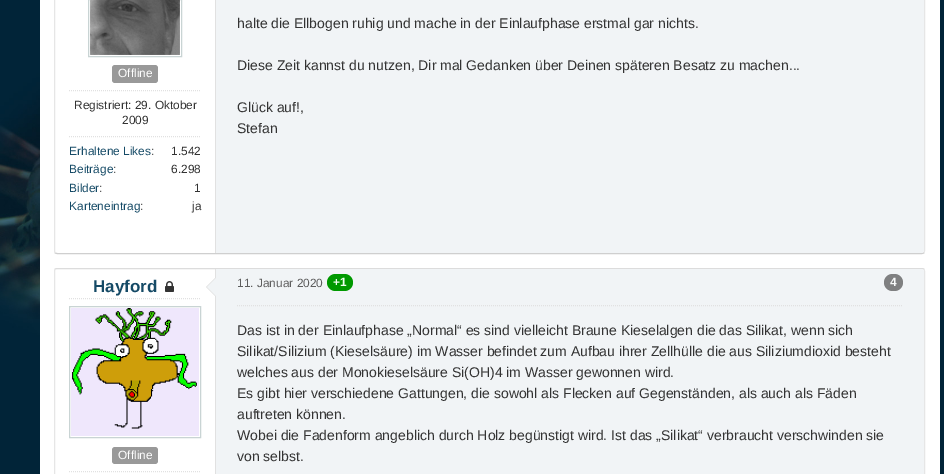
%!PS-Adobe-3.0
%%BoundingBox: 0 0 944 474
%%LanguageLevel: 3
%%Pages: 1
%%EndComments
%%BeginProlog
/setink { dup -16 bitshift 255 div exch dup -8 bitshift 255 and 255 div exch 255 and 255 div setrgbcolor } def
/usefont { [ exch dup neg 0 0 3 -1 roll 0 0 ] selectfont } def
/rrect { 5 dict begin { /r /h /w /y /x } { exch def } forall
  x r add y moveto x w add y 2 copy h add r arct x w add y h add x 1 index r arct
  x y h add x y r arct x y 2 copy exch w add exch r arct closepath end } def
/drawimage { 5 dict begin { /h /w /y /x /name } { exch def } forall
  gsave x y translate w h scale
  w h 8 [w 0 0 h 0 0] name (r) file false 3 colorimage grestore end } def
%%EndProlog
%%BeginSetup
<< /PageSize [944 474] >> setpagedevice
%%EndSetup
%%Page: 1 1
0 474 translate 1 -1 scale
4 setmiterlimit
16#FFFFFF setink
0 0 944 474 rectfill
(img1.raw) 0 0 944 474 drawimage
40 0 900 474 rectfill
16#E6E6E6 setink
924 -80 moveto 924.5 -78 lineto 924.5 251 lineto 924 253 lineto stroke
16#CFCFCF setink
924 253 moveto 922 253.5 lineto 57 253.5 lineto 55 253 lineto stroke
16#E6E6E6 setink
55 253 moveto 54.5 251 lineto 54.5 -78 lineto 55 -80 lineto stroke
16#C9D4D4 setink
88.5 -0.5 93 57 rectstroke
(img2.raw) 90 0 90 55 drawimage
16#999999 setink
112 65 46 18 3 rrect fill
/LiberationSans-Regular 11.9 usefont
16#FFFFFF setink
118 77 moveto (Offline) show
16#E1E1E1 setink
[1 1] 0 setdash
69 90.5 moveto 201 90.5 lineto stroke
16#333333 setink
74 109 moveto (Registriert: 29. Oktober) show
122 124 moveto (2009) show
16#E1E1E1 setink
69 136.5 moveto 201 136.5 lineto stroke
16#154A66 setink
69 155 moveto (Erhaltene Likes) show
16#5E5E5E setink
151 155 moveto (:) show
16#333333 setink
171 155 moveto (1.542) show
16#154A66 setink
69 173 moveto (Beiträge) show
16#5E5E5E setink
113 173 moveto (:) show
16#333333 setink
171 173 moveto (6.298) show
16#154A66 setink
69 192 moveto (Bilder) show
16#5E5E5E setink
99 192 moveto (:) show
16#333333 setink
194 192 moveto (1) show
16#154A66 setink
69 210 moveto (Karteneintrag) show
16#5E5E5E setink
140 210 moveto (:) show
16#333333 setink
192 210 moveto (ja) show
16#F1F4F6 setink
215 -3 moveto 921 -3 lineto 922.5 -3 924 -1.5 924 0 curveto 924 250 lineto 924 251.5 922.5 253 921 253 curveto 215 253 lineto closepath fill
16#E1E1E1 setink
215 0 1 253 rectfill
/LiberationSans-Regular 14 usefont
16#333333 setink
[
    [(halte die Ellbogen ruhig und mache in der Einlaufphase erstmal gar nichts.) 237 28]
    [(Diese Zeit kannst du nutzen, Dir mal Gedanken über Deinen späteren Besatz zu machen...) 237 70]
    [(Glück auf!,) 237 112]
    [(Stefan) 237 133]
] { aload pop moveto show } forall
16#DCDCDC setink
[] 0 setdash
55 269 moveto 57 268.5 lineto 922 268.5 lineto 924 269 lineto stroke
16#E6E6E6 setink
924 269 moveto 924.5 271 lineto 924.5 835 lineto 924 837 lineto stroke
55 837 moveto 54.5 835 lineto 54.5 271 lineto 55 269 lineto stroke
16#E1E1E1 setink
[1 1] 0 setdash
69 298.5 moveto 201 298.5 lineto stroke
/LiberationSans-Bold 17 usefont
16#154A66 setink
93 292 moveto (Hayford) show
(img3.raw) 165 281 9 11 drawimage
16#C9D4D4 setink
[] 0 setdash
69.5 306.5 131 131 rectstroke
(img4.raw) 71 308 128 128 drawimage
16#999999 setink
112 447 46 17 3 rrect fill
/LiberationSans-Regular 11.9 usefont
16#FFFFFF setink
118 459 moveto (Offline) show
16#E1E1E1 setink
[1 1] 0 setdash
69 471.5 moveto 201 471.5 lineto stroke
16#F1F4F6 setink
215 269 moveto 921 269 lineto 922.5 269 924 270.5 924 272 curveto 924 474 lineto 924 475.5 922.5 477 921 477 curveto 215 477 lineto closepath fill
16#E1E1E1 setink
215 269 1 205 rectfill
216 277 moveto 216 297 lineto 206 287 lineto closepath fill
16#F1F4F6 setink
217 277 moveto 217 297 lineto 207 287 lineto closepath fill
16#5E5E5E setink
237 287 moveto (11. Januar 2020) show
16#009900 setink
327 274 26 17 8.5 rrect fill
/LiberationSans-Bold 11.9 usefont
16#EEFFEE setink
333 286 moveto (+1) show
16#7F8081 setink
884 274 19 17 8.5 rrect fill
16#F9FBFB setink
890 286 moveto (4) show
16#E1E1E1 setink
237 305.5 moveto 903 305.5 lineto stroke
/LiberationSans-Regular 14 usefont
16#333333 setink
[
    [(Das ist in der Einlaufphase „Normal“ es sind vielleicht Braune Kieselalgen die das Silikat, wenn sich) 237 335]
    [(Silikat/Silizium \(Kieselsäure\) im Wasser befindet zum Aufbau ihrer Zellhülle die aus Siliziumdioxid besteht) 237 356]
    [(welches aus der Monokieselsäure Si\(OH\)4 im Wasser gewonnen wird.) 237 377]
    [(Es gibt hier verschiedene Gattungen, die sowohl als Flecken auf Gegenständen, als auch als Fäden) 237 398]
    [(auftreten können.) 237 419]
    [(Wobei die Fadenform angeblich durch Holz begünstigt wird. Ist das „Silikat“ verbraucht verschwinden sie) 237 440]
    [(von selbst.) 237 461]
] { aload pop moveto show } forall
showpage
%%EOF
